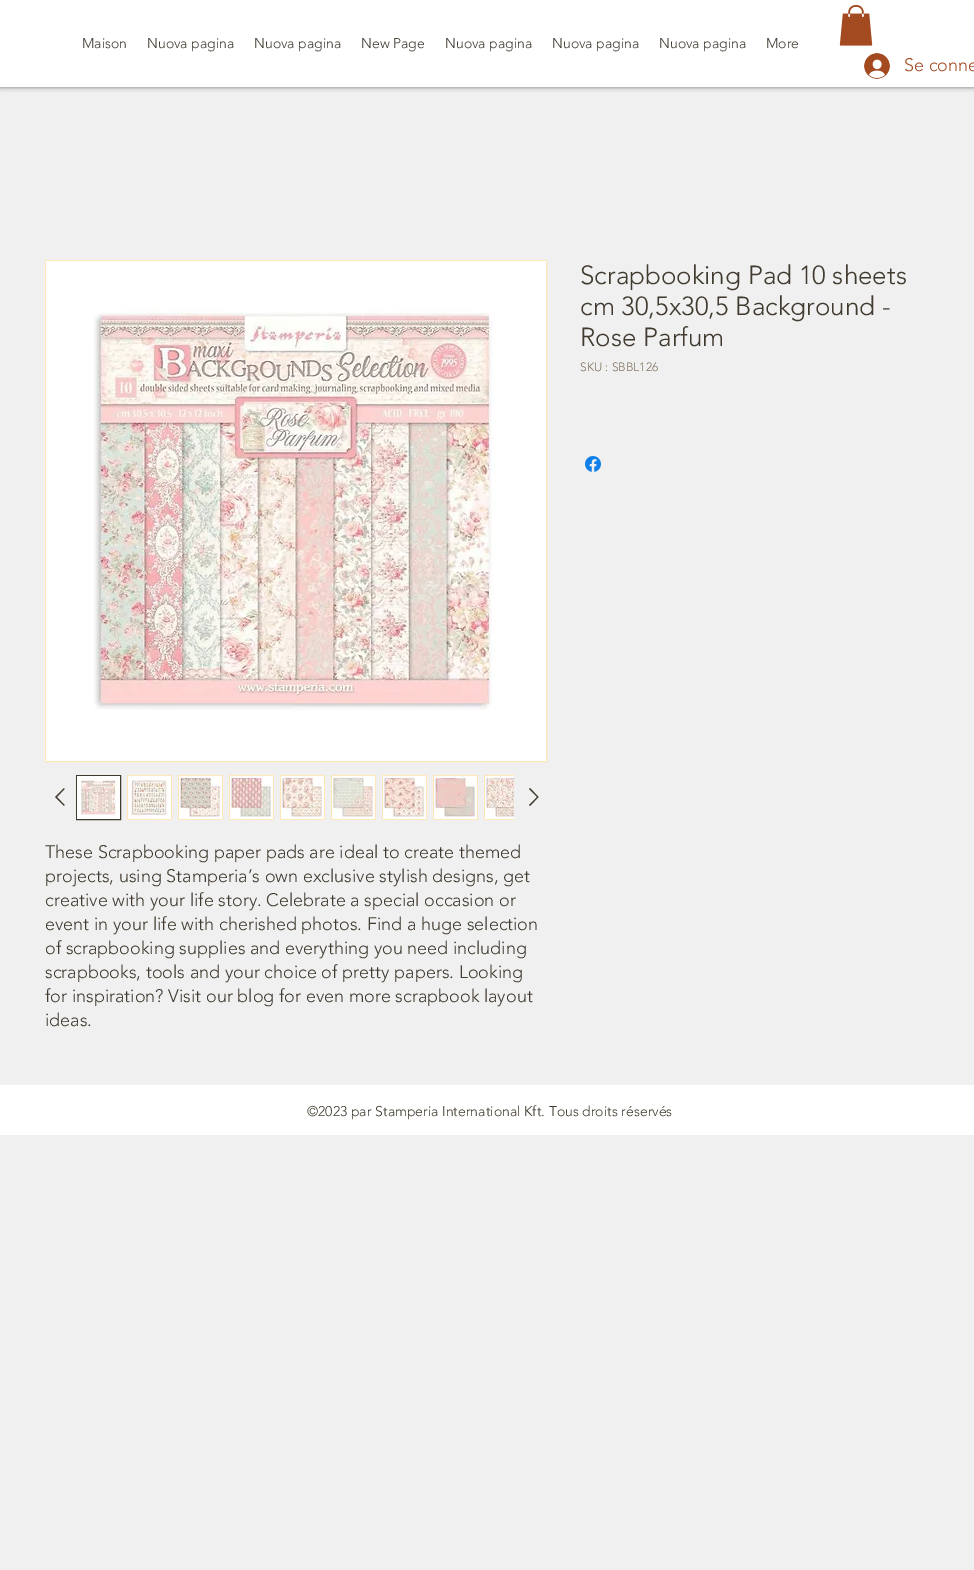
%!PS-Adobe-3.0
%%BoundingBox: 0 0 974 1570
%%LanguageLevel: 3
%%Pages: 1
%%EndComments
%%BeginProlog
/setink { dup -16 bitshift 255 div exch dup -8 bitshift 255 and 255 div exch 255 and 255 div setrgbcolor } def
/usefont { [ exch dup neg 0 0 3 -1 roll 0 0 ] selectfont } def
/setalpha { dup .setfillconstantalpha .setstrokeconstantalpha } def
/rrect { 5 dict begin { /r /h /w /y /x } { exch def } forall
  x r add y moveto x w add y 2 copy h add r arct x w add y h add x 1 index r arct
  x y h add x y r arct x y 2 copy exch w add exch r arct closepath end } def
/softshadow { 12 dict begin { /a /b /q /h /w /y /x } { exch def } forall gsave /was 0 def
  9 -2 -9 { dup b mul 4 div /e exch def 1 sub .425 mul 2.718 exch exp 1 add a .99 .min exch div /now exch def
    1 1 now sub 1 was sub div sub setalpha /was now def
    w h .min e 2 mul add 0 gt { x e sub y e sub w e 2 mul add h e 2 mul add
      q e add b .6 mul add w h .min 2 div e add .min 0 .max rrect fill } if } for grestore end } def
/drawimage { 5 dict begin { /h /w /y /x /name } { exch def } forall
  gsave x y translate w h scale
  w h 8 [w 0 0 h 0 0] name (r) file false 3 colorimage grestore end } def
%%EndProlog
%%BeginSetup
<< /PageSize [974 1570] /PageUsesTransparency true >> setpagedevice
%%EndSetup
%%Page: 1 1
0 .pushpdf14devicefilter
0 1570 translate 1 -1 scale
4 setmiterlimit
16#F0F0F0 setink
0 0 974 1570 rectfill
16#000000 setink
0 0 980 87 0 2.5 0.5 softshadow
16#FFFFFF setink
0 0 974 87 rectfill
/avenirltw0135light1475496-Light 14 usefont
16#403A2F setink
[
    [(Maison) 82 48]
    [(Nuova pagina) 147 48]
    [(Nuova pagina) 254 48]
    [(New Page) 361 48]
    [(Nuova pagina) 445 48]
    [(Nuova pagina) 552 48]
    [(Nuova pagina) 659 48]
    [(More) 766 48]
] { aload pop moveto show } forall
(img1.raw) 839 5 34 41 drawimage
(img2.raw) 864 53 26 26 drawimage
/avenirltw0135light1475496-Light 18 usefont
16#A34A21 setink
904 71 moveto (Se conne) show
/avenirltw0135light1475496-Light 26 usefont
16#403A2F setink
[
    [(Scrapbooking Pad 10 sheets) 580 284]
    [(cm 30,5x30,5 Background -) 580 315]
    [(Rose Parfum) 580 346]
] { aload pop moveto show } forall
/avenirltw0135light1475496-Light 12 usefont
16#80745D setink
580 371 moveto (SKU : SBBL126) show
(img3.raw) 585 456 16 16 drawimage
16#FFE7BA setink
45.5 260.5 501 501 rectstroke
(img4.raw) 46 261 500 500 drawimage
16#403A2F setink
64 788 moveto 64.5 789 lineto 57 797 lineto 64.5 805 lineto 64 806 lineto 55 797 lineto closepath eofill
76.5 775.5 44 44 rectstroke
(img5.raw) 77 776 43 43 drawimage
16#FFE7BA setink
127 775 45 45 rectfill
(img6.raw) 128 776 43 43 drawimage
178 775 45 45 rectfill
(img7.raw) 179 776 43 43 drawimage
229 775 45 45 rectfill
(img8.raw) 230 776 43 43 drawimage
280 775 45 45 rectfill
(img9.raw) 281 776 43 43 drawimage
331 775 45 45 rectfill
(img10.raw) 332 776 43 43 drawimage
382 775 45 45 rectfill
(img11.raw) 383 776 43 43 drawimage
433 775 45 45 rectfill
(img12.raw) 434 776 43 43 drawimage
484 775 30 45 rectfill
(img13.raw) 485 776 29 43 drawimage
16#403A2F setink
530 788 moveto 538.5 797 lineto 530 806 lineto 529 805 lineto 537 797 lineto 529 789 lineto closepath eofill
/avenirltw0135light1475496-Light 18 usefont
[
    [(These Scrapbooking paper pads are ideal to create themed) 45 858]
    [(projects, using Stamperia’s own exclusive stylish designs, get) 45 882]
    [(creative with your life story. Celebrate a special occasion or) 45 906]
    [(event in your life with cherished photos. Find a huge selection) 45 930]
    [(of scrapbooking supplies and everything you need including) 45 954]
    [(scrapbooks, tools and your choice of pretty papers. Looking) 45 978]
    [(for inspiration? Visit our blog for even more scrapbook layout) 45 1002]
    [(ideas.) 45 1026]
] { aload pop moveto show } forall
16#FFFFFF setink
0 1085 974 50 rectfill
/avenirltw0135light1475496-Light 14 usefont
16#403A2F setink
307 1116 moveto (©2023 par Stamperia International Kft. Tous droits réservés) show
.poppdf14devicefilter showpage
%%EOF
